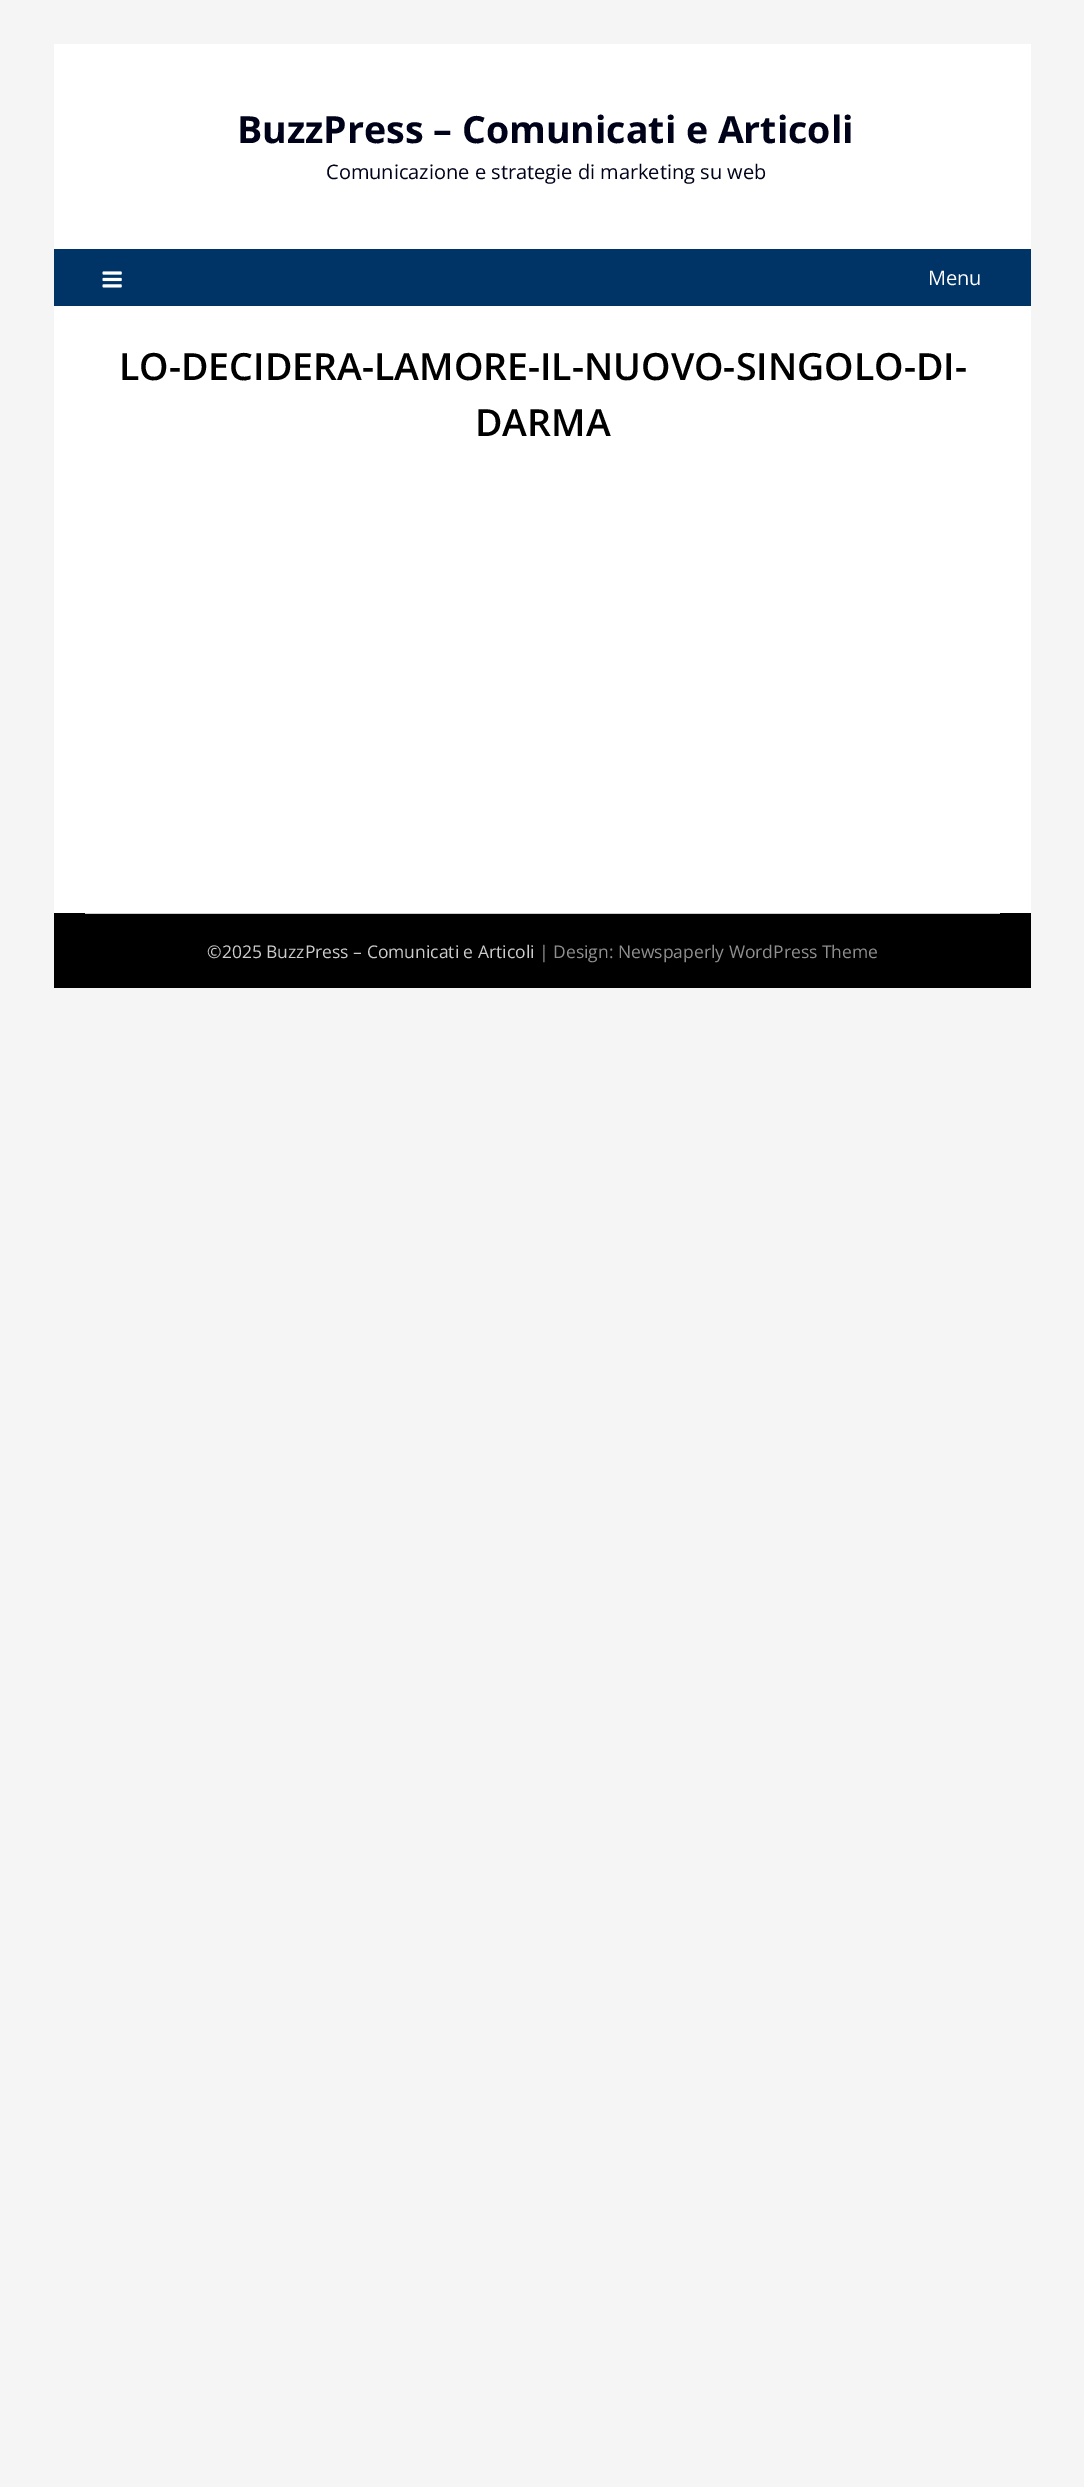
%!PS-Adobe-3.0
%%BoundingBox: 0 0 1084 2487
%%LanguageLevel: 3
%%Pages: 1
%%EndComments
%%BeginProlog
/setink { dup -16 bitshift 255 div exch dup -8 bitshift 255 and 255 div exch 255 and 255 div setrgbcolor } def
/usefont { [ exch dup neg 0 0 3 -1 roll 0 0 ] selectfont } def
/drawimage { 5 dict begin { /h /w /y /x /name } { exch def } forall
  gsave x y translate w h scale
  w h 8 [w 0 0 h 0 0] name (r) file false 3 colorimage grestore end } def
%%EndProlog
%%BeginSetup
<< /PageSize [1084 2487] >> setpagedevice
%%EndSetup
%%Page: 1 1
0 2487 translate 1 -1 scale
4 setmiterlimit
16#F5F5F5 setink
0 0 1084 2487 rectfill
16#FFFFFF setink
54 44 977 205 rectfill
/OpenSans-Bold 37.5 usefont
16#00021A setink
237 143 moveto (BuzzPress – Comunicati e Articoli) show
/OpenSans-Regular 20 usefont
326 179 moveto (Comunicazione e strategie di marketing su web) show
16#003366 setink
54 249 977 57 rectfill
(img1.raw) 102 271 20 17 drawimage
16#FFFFFF setink
928 285 moveto (Menu) show
54 306 977 607 rectfill
/OpenSans-SemiBold 37.5 usefont
16#000000 setink
119 380 moveto (LO-DECIDERA-LAMORE-IL-NUOVO-SINGOLO-DI-) show
475 436 moveto (DARMA) show
54 913 977 75 rectfill
16#CCCCCC setink
85 913 915 1 rectfill
/OpenSans-Regular 17.5 usefont
207 958 moveto (©2025 BuzzPress – Comunicati e Articoli) show
16#8F8F8F setink
539 958 moveto (| Design: Newspaperly WordPress Theme) show
showpage
%%EOF
